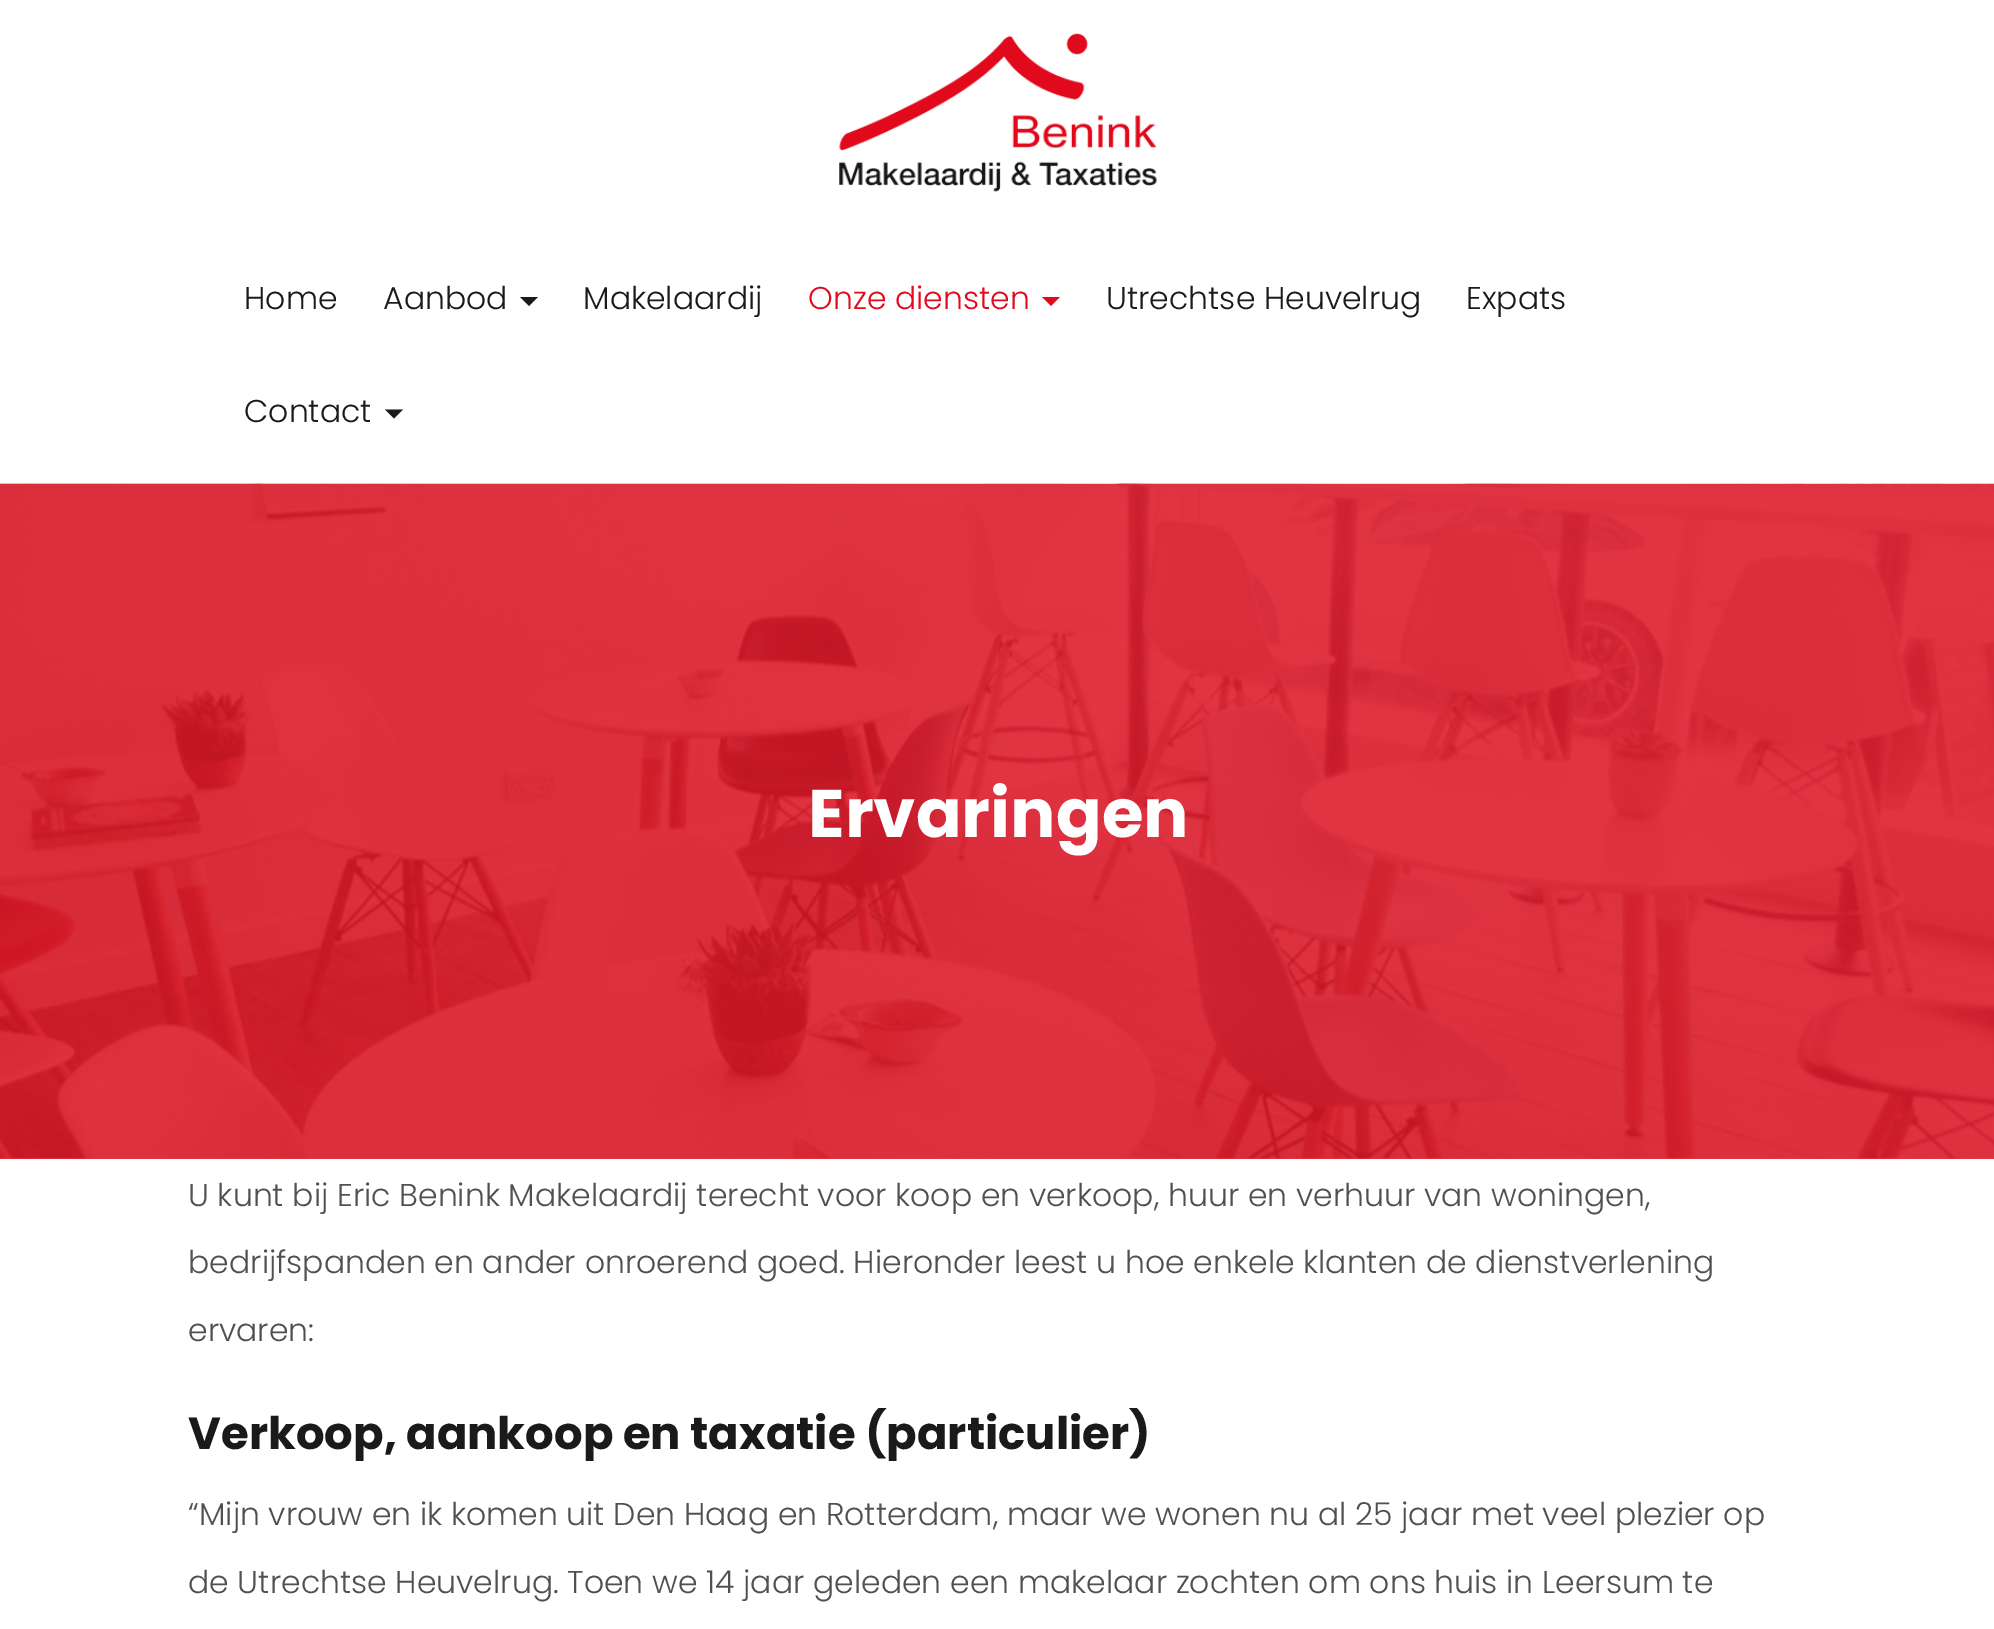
%!PS-Adobe-3.0
%%BoundingBox: 0 0 1994 1629
%%LanguageLevel: 3
%%Pages: 1
%%EndComments
%%BeginProlog
/setink { dup -16 bitshift 255 div exch dup -8 bitshift 255 and 255 div exch 255 and 255 div setrgbcolor } def
/usefont { [ exch dup neg 0 0 3 -1 roll 0 0 ] selectfont } def
/setalpha { dup .setfillconstantalpha .setstrokeconstantalpha } def
/rrect { 5 dict begin { /r /h /w /y /x } { exch def } forall
  x r add y moveto x w add y 2 copy h add r arct x w add y h add x 1 index r arct
  x y h add x y r arct x y 2 copy exch w add exch r arct closepath end } def
/softshadow { 12 dict begin { /a /b /q /h /w /y /x } { exch def } forall gsave /was 0 def
  9 -2 -9 { dup b mul 4 div /e exch def 1 sub .425 mul 2.718 exch exp 1 add a .99 .min exch div /now exch def
    1 1 now sub 1 was sub div sub setalpha /was now def
    w h .min e 2 mul add 0 gt { x e sub y e sub w e 2 mul add h e 2 mul add
      q e add b .6 mul add w h .min 2 div e add .min 0 .max rrect fill } if } for grestore end } def
/drawimage { 5 dict begin { /h /w /y /x /name } { exch def } forall
  gsave x y translate w h scale
  w h 8 [w 0 0 h 0 0] name (r) file false 3 colorimage grestore end } def
%%EndProlog
%%BeginSetup
<< /PageSize [1994 1629] /PageUsesTransparency true >> setpagedevice
%%EndSetup
%%Page: 1 1
0 .pushpdf14devicefilter
0 1629 translate 1 -1 scale
4 setmiterlimit
16#FFFFFF setink
0 0 1994 1629 rectfill
16#9E989E setink
9 20 1978 466 0 5.5 1 softshadow
16#FFFFFF setink
0 9 1994 475 rectfill
(img1.raw) 839 33 318 159 drawimage
/Poppins-Light 31.5 usefont
16#1A1A1A setink
244 309 moveto (Home) show
383 309 moveto (Aanbod) show
520 297 moveto 538 297 lineto 529 306 lineto closepath fill
583 309 moveto (Makelaardij) show
16#E10A1C setink
808 309 moveto (Onze diensten) show
1042 297 moveto 1060 297 lineto 1051 306 lineto closepath fill
16#1A1A1A setink
[
    [(Utrechtse Heuvelrug) 1106 309]
    [(Expats) 1466 309]
    [(Contact) 244 422]
] { aload pop moveto show } forall
385 409.5 moveto 403 409.5 lineto 394 418.5 lineto closepath fill
(img2.raw) 0 483 1994 676 drawimage
0.8 setalpha
16#E10A1C setink
0 484 1994 675 rectfill
/Poppins-Bold 67.5 usefont
1 setalpha
16#FFFFFF setink
808 837 moveto (Ervaringen) show
/Poppins-Light 31.5 usefont
16#505050 setink
[
    [(U kunt bij Eric Benink Makelaardij terecht voor koop en verkoop, huur en verhuur van woningen,) 188 1206]
    [(bedrijfspanden en ander onroerend goed. Hieronder leest u hoe enkele klanten de dienstverlening) 188 1273]
    [(ervaren:) 188 1341]
] { aload pop moveto show } forall
/Poppins-Bold 45 usefont
16#1A1A1A setink
188 1449 moveto (Verkoop, aankoop en taxatie \(particulier\)) show
/Poppins-Light 31.5 usefont
16#505050 setink
188 1525 moveto (“Mijn vrouw en ik komen uit Den Haag en Rotterdam, maar we wonen nu al 25 jaar met veel plezier op) show
188 1593 moveto (de Utrechtse Heuvelrug. Toen we 14 jaar geleden een makelaar zochten om ons huis in Leersum te) show
.poppdf14devicefilter showpage
%%EOF
